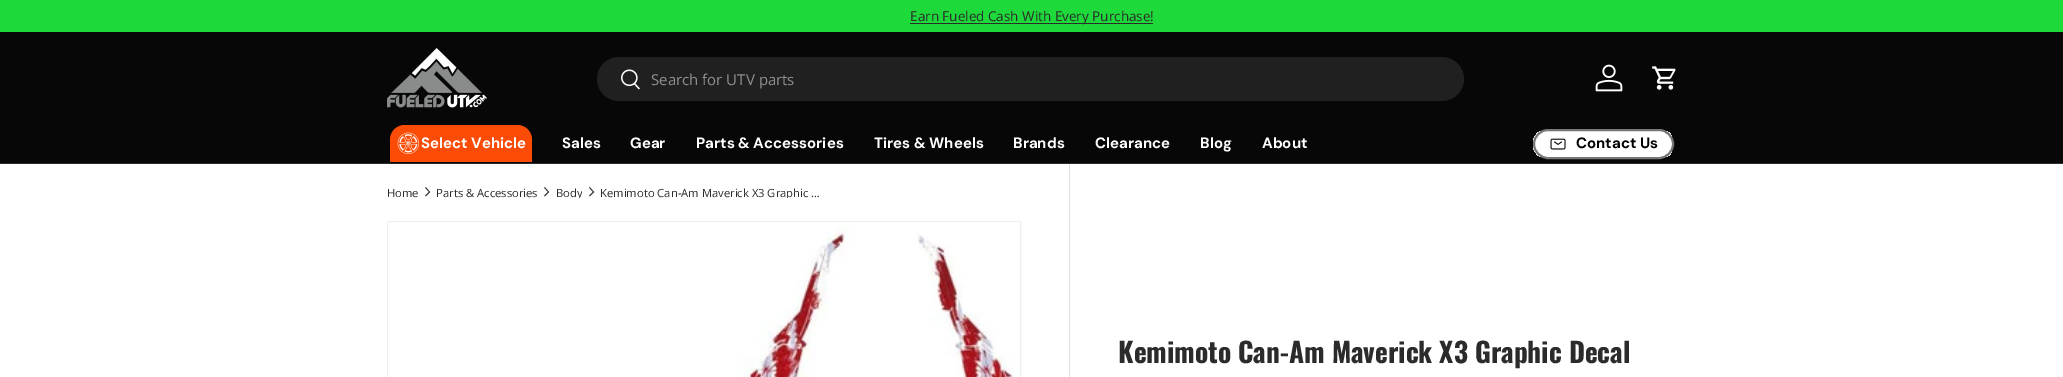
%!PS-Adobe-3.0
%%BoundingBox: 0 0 2063 377
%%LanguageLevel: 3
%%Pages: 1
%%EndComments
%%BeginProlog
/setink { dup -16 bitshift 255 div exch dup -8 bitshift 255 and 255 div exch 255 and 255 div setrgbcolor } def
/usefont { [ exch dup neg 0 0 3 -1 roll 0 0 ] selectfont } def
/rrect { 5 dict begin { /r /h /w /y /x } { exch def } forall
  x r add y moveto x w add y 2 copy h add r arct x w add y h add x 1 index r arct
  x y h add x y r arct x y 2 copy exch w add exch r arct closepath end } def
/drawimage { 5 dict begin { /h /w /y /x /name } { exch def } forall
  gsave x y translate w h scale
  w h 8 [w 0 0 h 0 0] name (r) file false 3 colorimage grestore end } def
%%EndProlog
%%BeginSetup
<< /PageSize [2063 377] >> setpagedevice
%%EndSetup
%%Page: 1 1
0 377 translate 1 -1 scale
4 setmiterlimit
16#FFFFFF setink
0 0 2063 377 rectfill
16#1ED93A setink
0 0 2063 32 rectfill
16#2A2B2A setink
910 23 243 1 rectfill
/OpenSans-Regular 13.5 usefont
910 21 moveto (Earn Fueled Cash With Every Purchase!) show
16#070707 setink
0 32 2063 131 rectfill
16#2C2C2C setink
0 163 2063 1 rectfill
(img1.raw) 387 48 100 60 drawimage
16#202020 setink
597 57 867 44 22 rrect fill
(img2.raw) 621 69 19 21 drawimage
/OpenSans-Regular 15 usefont
16#909090 setink
651 85 moveto (Search for UTV parts) show
(img3.raw) 1595 64 28 28 drawimage
(img4.raw) 1652 66 24 24 drawimage
16#FA4C06 setink
405 125 moveto 517 125 lineto 525.5 125 532 131.5 532 140 curveto 532 162 lineto 390 162 lineto 390 140 lineto 390 131.5 396.5 125 405 125 curveto closepath fill
(img5.raw) 397 132 22 22 drawimage
/DMSans-Bold 15 usefont
16#FFFFFF setink
[
    [(Select Vehicle) 421 148]
    [(Sales) 562 148]
    [(Gear) 630 148]
    [(Parts & Accessories) 696 148]
    [(Tires & Wheels) 874 148]
    [(Brands) 1013 148]
    [(Clearance) 1095 148]
    [(Blog) 1200 148]
    [(About) 1262 148]
] { aload pop moveto show } forall
gsave
1533 129 141 30 15 rrect clip newpath
gsave 1533 131 moveto 1672 131 lineto 1672 157 lineto 1533 157 lineto closepath clip newpath
<< /ShadingType 2 /ColorSpace /DeviceRGB /Coords [1270 95 1663 193] /Extend [true true] /Function << /FunctionType 3 /Domain [0 1] /Functions [<< /FunctionType 2 /Domain [0 1] /C0 [0.882 0.882 0.882] /C1 [0.882 0.882 0.882] /N 1 >> << /FunctionType 2 /Domain [0 1] /C0 [1 1 1] /C1 [1 1 1] /N 1 >>] /Bounds [0.6] /Encode [0 1 0 1] >> >> shfill grestore
grestore
16#777777 setink
2 setlinewidth
1534 130 139 28 14 rrect stroke
(img6.raw) 1550 138 16 12 drawimage
16#000000 setink
1576 148 moveto (Contact Us) show
/OpenSans-Regular 11.25 usefont
16#2A2B2A setink
387 197 moveto (Home) show
0.8 setlinewidth
425.5 187.5 moveto 429.5 192 lineto 425.5 196 lineto stroke
436 197 moveto (Parts & Accessories) show
544.5 187.5 moveto 548.5 192 lineto 544.5 196 lineto stroke
gsave
556 187 26 11 rectclip
556 197 moveto (Body) show
grestore
589.5 187.5 moveto 593.5 192 lineto 589.5 196 lineto stroke
gsave
600 187 225 11 rectclip
600 197 moveto (Kemimoto Can-Am Maverick X3 Graphic …) show
grestore
16#EEEEEE setink
1 setlinewidth
387.5 221.5 633 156 rectstroke
(img7.raw) 388 222 632 155 drawimage
16#DFDFDF setink
1069 164 1 213 rectfill
/Oswald-Bold 27.4 usefont
16#2A2B2A setink
1118 363 moveto (Kemimoto Can-Am Maverick X3 Graphic Decal) show
showpage
%%EOF
